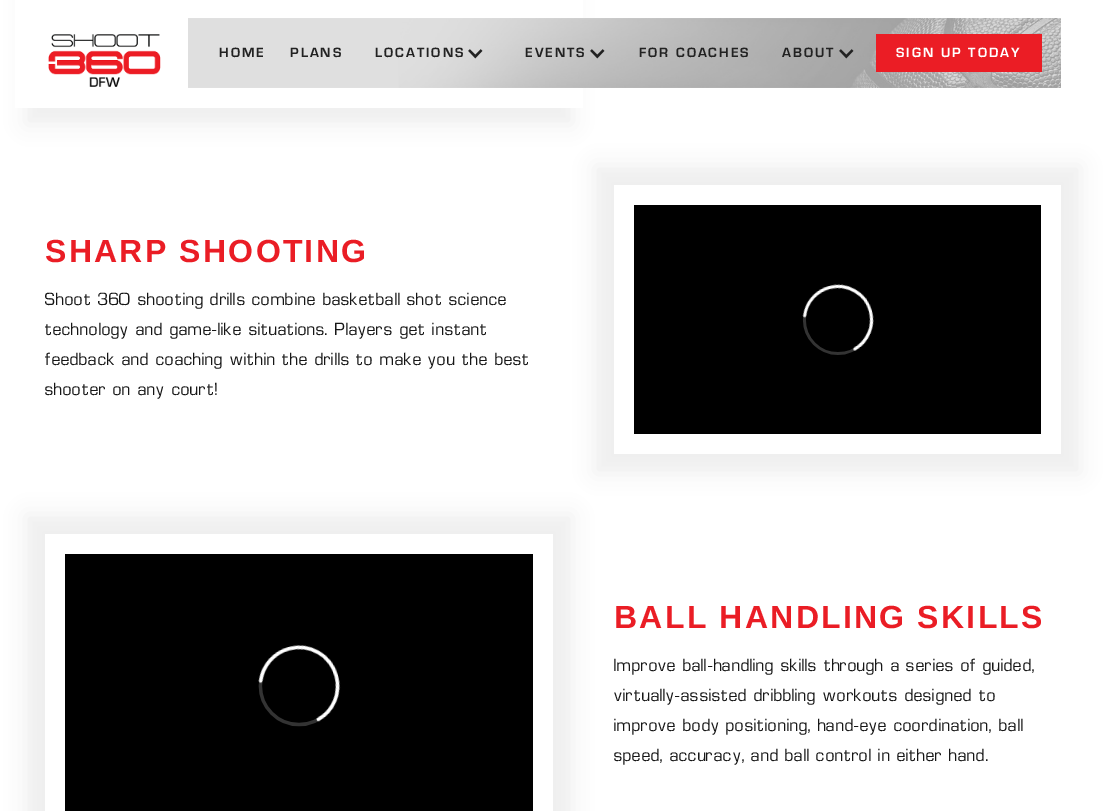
%!PS-Adobe-3.0
%%BoundingBox: 0 0 1105 811
%%LanguageLevel: 3
%%Pages: 1
%%EndComments
%%BeginProlog
/setink { dup -16 bitshift 255 div exch dup -8 bitshift 255 and 255 div exch 255 and 255 div setrgbcolor } def
/usefont { [ exch dup neg 0 0 3 -1 roll 0 0 ] selectfont } def
/setalpha { dup .setfillconstantalpha .setstrokeconstantalpha } def
/rrect { 5 dict begin { /r /h /w /y /x } { exch def } forall
  x r add y moveto x w add y 2 copy h add r arct x w add y h add x 1 index r arct
  x y h add x y r arct x y 2 copy exch w add exch r arct closepath end } def
/softshadow { 12 dict begin { /a /b /q /h /w /y /x } { exch def } forall gsave /was 0 def
  9 -2 -9 { dup b mul 4 div /e exch def 1 sub .425 mul 2.718 exch exp 1 add a .99 .min exch div /now exch def
    1 1 now sub 1 was sub div sub setalpha /was now def
    w h .min e 2 mul add 0 gt { x e sub y e sub w e 2 mul add h e 2 mul add
      q e add b .6 mul add w h .min 2 div e add .min 0 .max rrect fill } if } for grestore end } def
/drawimage { 5 dict begin { /h /w /y /x /name } { exch def } forall
  gsave x y translate w h scale
  w h 8 [w 0 0 h 0 0] name (r) file false 3 colorimage grestore end } def
%%EndProlog
%%BeginSetup
<< /PageSize [1105 811] /PageUsesTransparency true >> setpagedevice
%%EndSetup
%%Page: 1 1
0 .pushpdf14devicefilter
0 811 translate 1 -1 scale
4 setmiterlimit
16#FFFFFF setink
0 0 1105 811 rectfill
16#EEEEEE setink
25 -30 548 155 0 10 1 softshadow
16#FFFFFF setink
15 0 568 108 rectfill
(img1.raw) 48 34 113 53 drawimage
(img2.raw) 188 18 873 70 drawimage
/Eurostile-Bold 14 usefont
16#222222 setink
219 57 moveto 2 0 (HOME) ashow
290 57 moveto 2 0 (PLANS) ashow
375 57 moveto 2 0 (LOCATIONS) ashow
(img3.raw) 468 49 15 10 drawimage
525 57 moveto 2 0 (EVENTS) ashow
(img4.raw) 590 49 15 10 drawimage
639 57 moveto 2 0 (FOR COACHES) ashow
782 57 moveto 2 0 (ABOUT) ashow
(img5.raw) 839 49 15 10 drawimage
16#EB1D25 setink
876 34 166 38 rectfill
16#FFFFFF setink
896 57 moveto 2 0 (SIGN UP TODAY) ashow
/LiberationSans-Bold 32 usefont
16#EA1D25 setink
45 262 moveto 2.25 0 (SHARP SHOOTING) ashow
/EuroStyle-Regular 20 usefont
16#171717 setink
45 305 moveto 1.1 0 (Shoot 360 shooting drills combine basketball shot science) ashow
45 335 moveto 1.1 0 (technology and game-like situations. Players get instant) ashow
45 365 moveto 1.1 0 (feedback and coaching within the drills to make you the best) ashow
45 395 moveto 1.1 0 (shooter on any court!) ashow
gsave
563 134 moveto 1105 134 lineto 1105 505 lineto 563 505 lineto closepath 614 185 moveto 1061 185 lineto 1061 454 lineto 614 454 lineto closepath eoclip newpath
16#EEEEEE setink
594 165 487 309 0 10 1 softshadow
grestore
(img6.raw) 634 205 407 229 drawimage
gsave
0 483 moveto 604 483 lineto 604 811 lineto 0 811 lineto closepath 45 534 moveto 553 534 lineto 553 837 lineto 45 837 lineto closepath eoclip newpath
16#EEEEEE setink
25 514 548 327 0 10 1 softshadow
grestore
(img7.raw) 65 554 468 257 drawimage
/LiberationSans-Bold 32 usefont
16#EA1D25 setink
614 628 moveto 2.25 0 (BALL HANDLING SKILLS) ashow
/EuroStyle-Regular 20 usefont
16#171717 setink
614 671 moveto 1.1 0 (Improve ball-handling skills through a series of guided,) ashow
614 701 moveto 1.1 0 (virtually-assisted dribbling workouts designed to) ashow
614 731 moveto 1.1 0 (improve body positioning, hand-eye coordination, ball) ashow
614 761 moveto 1.1 0 (speed, accuracy, and ball control in either hand.) ashow
.poppdf14devicefilter showpage
%%EOF
